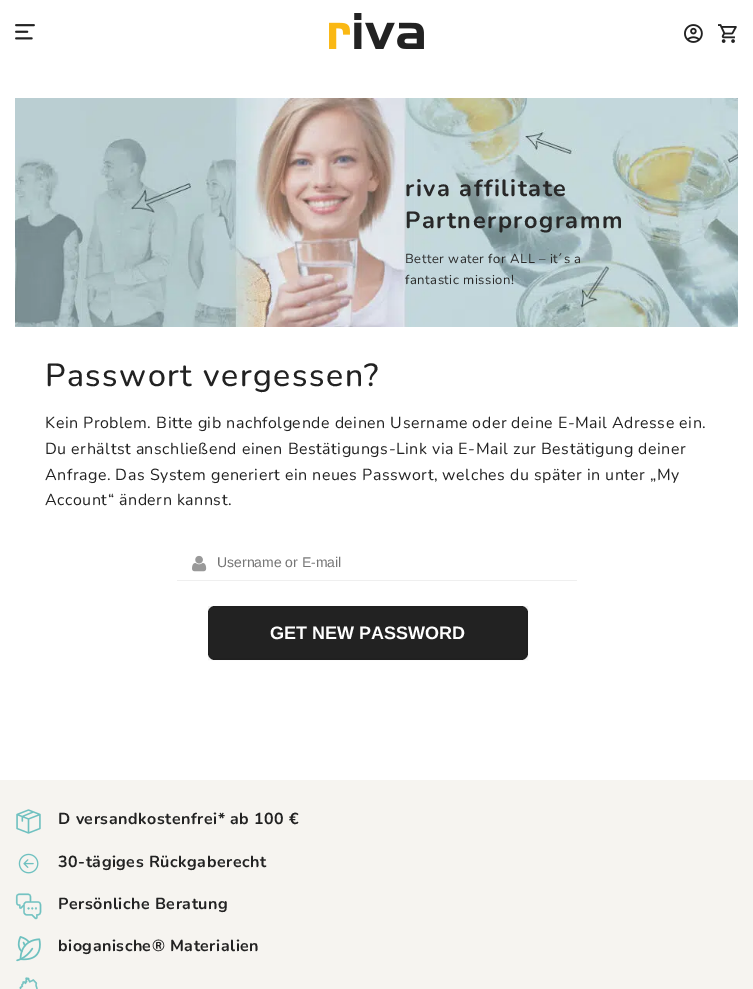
%!PS-Adobe-3.0
%%BoundingBox: 0 0 753 989
%%LanguageLevel: 3
%%Pages: 1
%%EndComments
%%BeginProlog
/setink { dup -16 bitshift 255 div exch dup -8 bitshift 255 and 255 div exch 255 and 255 div setrgbcolor } def
/usefont { [ exch dup neg 0 0 3 -1 roll 0 0 ] selectfont } def
/setalpha { dup .setfillconstantalpha .setstrokeconstantalpha } def
/rrect { 5 dict begin { /r /h /w /y /x } { exch def } forall
  x r add y moveto x w add y 2 copy h add r arct x w add y h add x 1 index r arct
  x y h add x y r arct x y 2 copy exch w add exch r arct closepath end } def
/drawimage { 5 dict begin { /h /w /y /x /name } { exch def } forall
  gsave x y translate w h scale
  w h 8 [w 0 0 h 0 0] name (r) file false 3 colorimage grestore end } def
%%EndProlog
%%BeginSetup
<< /PageSize [753 989] /PageUsesTransparency true >> setpagedevice
%%EndSetup
%%Page: 1 1
0 .pushpdf14devicefilter
0 989 translate 1 -1 scale
4 setmiterlimit
16#FFFFFF setink
0 0 753 989 rectfill
(img1.raw) 15 24 20 16 drawimage
(img2.raw) 329 13 95 36 drawimage
(img3.raw) 684 24 19 19 drawimage
(img4.raw) 718 24 19 19 drawimage
(img5.raw) 15 98 723 229 drawimage
/Nunito-Bold 23.5 usefont
16#282828 setink
405 196 moveto 1.5 0 (riva affilitate) ashow
405 228 moveto 1.5 0 (Partnerprogramm) ashow
/Nunito-Regular 13 usefont
405 263 moveto 0.5 0 (Better water for ALL – it´s a) ashow
405 284 moveto 0.5 0 (fantastic mission!) ashow
/Nunito-Medium 32 usefont
16#222222 setink
45 386 moveto 1.5 0 (Passwort vergessen?) ashow
/Nunito-Regular 16 usefont
45 428 moveto 0.5 0 (Kein Problem. Bitte gib nachfolgende deinen Username oder deine E-Mail Adresse ein.) ashow
45 454 moveto 0.5 0 (Du erhältst anschließend einen Bestätigungs-Link via E-Mail zur Bestätigung deiner) ashow
45 480 moveto 0.5 0 (Anfrage. Das System generiert ein neues Passwort, welches du später in unter „My) ashow
45 505 moveto 0.5 0 (Account“ ändern kannst.) ashow
16#EFEFEF setink
177 580 400 1 rectfill
(img6.raw) 192 555 15 17 drawimage
/LiberationSans-Regular 14 usefont
16#757575 setink
217 567 moveto (Username or E-mail) show
16#222222 setink
208 606 320 54 7 rrect fill
0.05 setalpha
16#000000 setink
2 setlinewidth
209 607 318 52 rectstroke
/LiberationSans-Bold 18 usefont
1 setalpha
16#FFFFFF setink
270 639 moveto (GET NEW PASSWORD) show
16#F6F4F0 setink
0 780 753 209 rectfill
(img7.raw) 16 809 25 25 drawimage
/Nunito-Bold 16 usefont
16#222222 setink
58 824 moveto 0.5 0 (D versandkostenfrei* ab 100 €) ashow
(img8.raw) 18 853 21 21 drawimage
58 867 moveto 0.5 0 (30-tägiges Rückgaberecht) ashow
(img9.raw) 15 893 27 27 drawimage
58 909 moveto 0.5 0 (Persönliche Beratung) ashow
(img10.raw) 16 936 25 26 drawimage
58 951 moveto 0.5 0 (bioganische® Materialien) ashow
(img11.raw) 19 977 19 12 drawimage
.poppdf14devicefilter showpage
%%EOF
